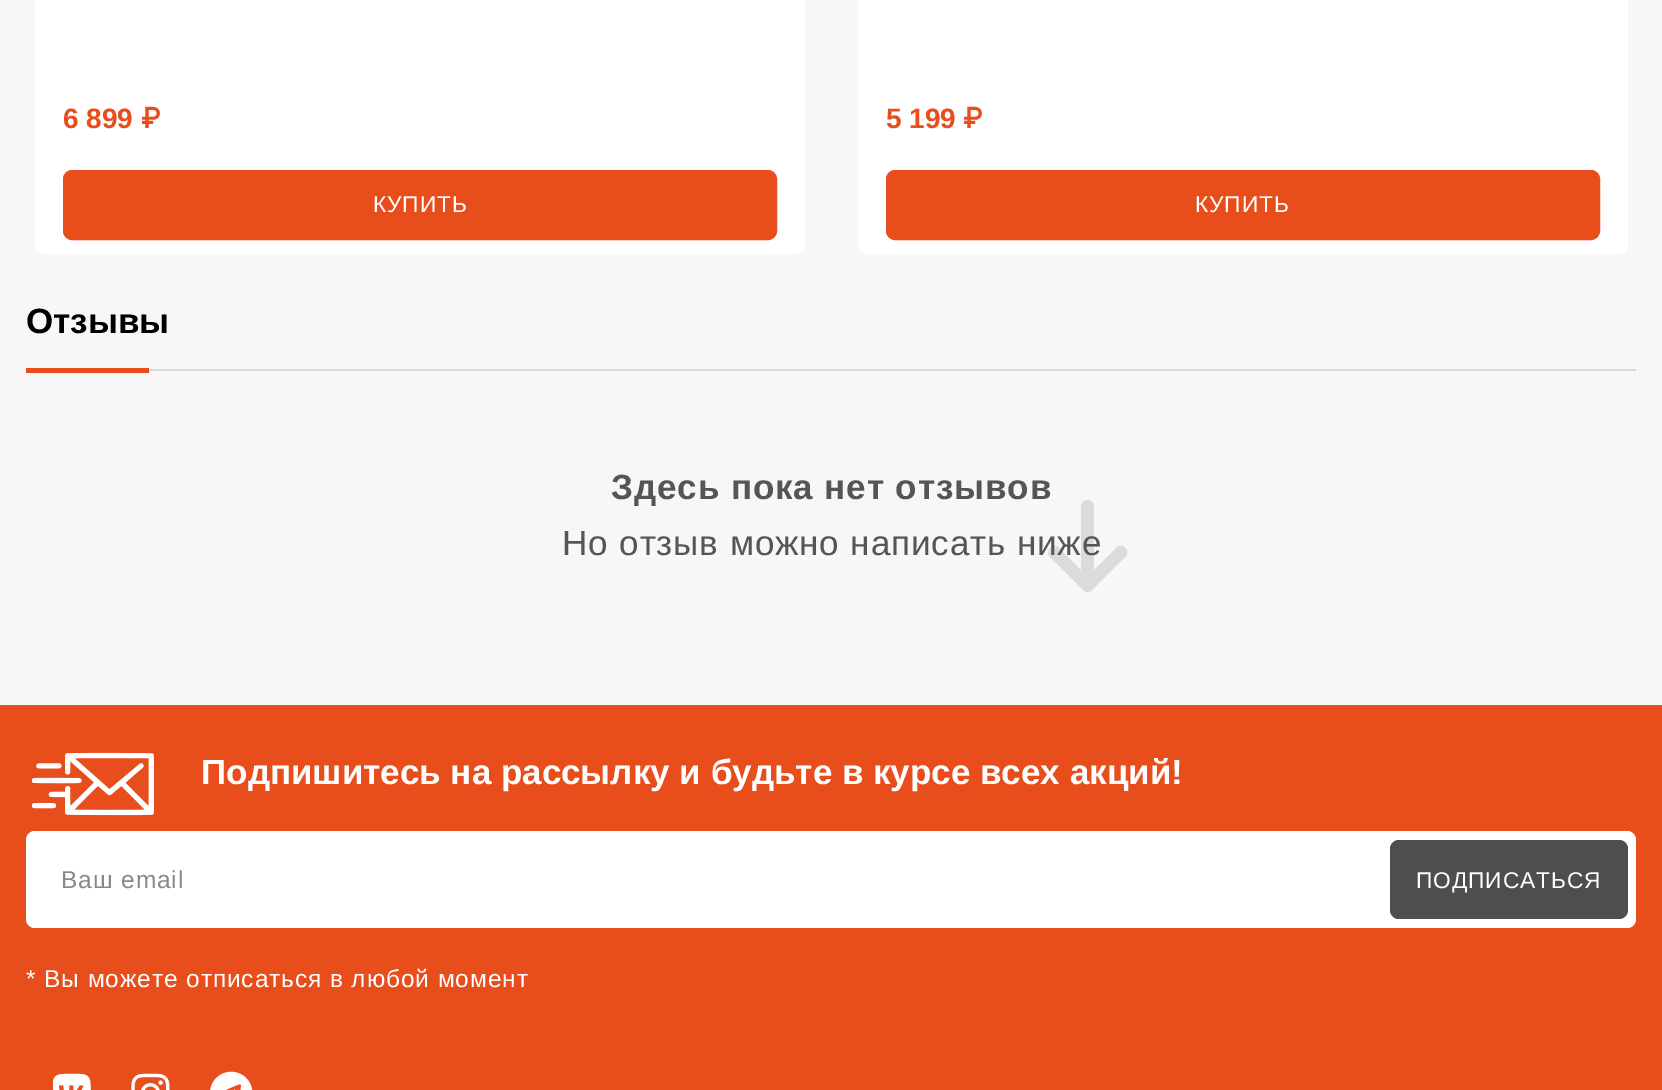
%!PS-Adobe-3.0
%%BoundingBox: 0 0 1662 1090
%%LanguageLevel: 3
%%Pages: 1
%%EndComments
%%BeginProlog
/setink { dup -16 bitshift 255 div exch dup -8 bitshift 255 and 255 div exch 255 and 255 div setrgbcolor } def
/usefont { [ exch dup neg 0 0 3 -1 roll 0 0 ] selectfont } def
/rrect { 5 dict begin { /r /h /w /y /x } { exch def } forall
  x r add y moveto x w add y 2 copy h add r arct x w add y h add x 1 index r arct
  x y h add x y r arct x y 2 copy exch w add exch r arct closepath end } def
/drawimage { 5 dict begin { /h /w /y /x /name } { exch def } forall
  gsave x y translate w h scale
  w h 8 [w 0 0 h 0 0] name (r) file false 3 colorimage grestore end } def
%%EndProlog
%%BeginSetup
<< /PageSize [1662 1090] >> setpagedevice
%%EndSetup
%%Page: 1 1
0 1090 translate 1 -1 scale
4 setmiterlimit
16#F7F7F7 setink
0 0 1662 1090 rectfill
16#FFFFFF setink
35 -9 770 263 9 rrect fill
/LiberationSans-Bold 28 usefont
16#E84D1C setink
63 128 moveto (6 899) show
/Inter-Bold 28 usefont
141 128 moveto (₽) show
64 171 712 68 8 rrect gsave fill grestore
2 setlinewidth
stroke
/LiberationSans-Regular 22.75 usefont
16#FFFFFF setink
373 212 moveto 0.9 0 (КУПИТЬ) ashow
858 -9 770 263 9 rrect fill
/LiberationSans-Bold 28 usefont
16#E84D1C setink
886 128 moveto (5 199) show
/Inter-Bold 28 usefont
963 128 moveto (₽) show
887 171 712 68 8 rrect gsave fill grestore
stroke
/LiberationSans-Regular 22.75 usefont
16#FFFFFF setink
1195 212 moveto 0.9 0 (КУПИТЬ) ashow
16#D9D9D9 setink
149 369 1487 2 rectfill
/LiberationSans-Bold 35 usefont
16#000000 setink
26 333 moveto (Отзывы) show
16#E84D1C setink
26 368 123 5 rectfill
16#555555 setink
611 499 moveto 0.9 0 (Здесь пока нет отзывов) ashow
16#DBDBDB setink
1083 590 moveto 1086 593 1090 593 1092 590 curveto 1125 557 lineto 1128 555 1128 550 1125 548 curveto 1123 545 1118 545 1116 548 curveto 1094 570 lineto 1094 507 lineto 1094 503 1091 500 1088 500 curveto 1084 500 1081 503 1081 507 curveto 1081 570 lineto 1059 548 lineto 1057 545 1053 545 1050 548 curveto 1048 550 1048 555 1050 557 curveto closepath fill
/LiberationSans-Regular 35 usefont
16#555555 setink
562 555 moveto 0.9 0 (Но отзыв можно написать ниже) ashow
16#E84D1C setink
0 705 1662 385 rectfill
(img1.raw) 32 752 122 64 drawimage
/LiberationSans-Bold 35 usefont
16#FFFFFF setink
201 784 moveto (Подпишитесь на рассылку и будьте в курсе всех акций!) show
26 831 1610 97 9 rrect fill
/LiberationSans-Regular 24.5 usefont
16#888888 setink
61 888 moveto 0.9 0 (Ваш email) ashow
16#4E4E4E setink
1390 840 238 79 9 rrect fill
/LiberationSans-Regular 22.75 usefont
16#FFFFFF setink
1416 888 moveto 0.9 0 (ПОДПИСАТЬСЯ) ashow
/LiberationSans-Regular 24.5 usefont
26 987 moveto 0.9 0 (* Вы можете отписаться в любой момент) ashow
(img2.raw) 53 1073 38 17 drawimage
(img3.raw) 131 1073 39 17 drawimage
(img4.raw) 210 1071 43 19 drawimage
showpage
%%EOF
